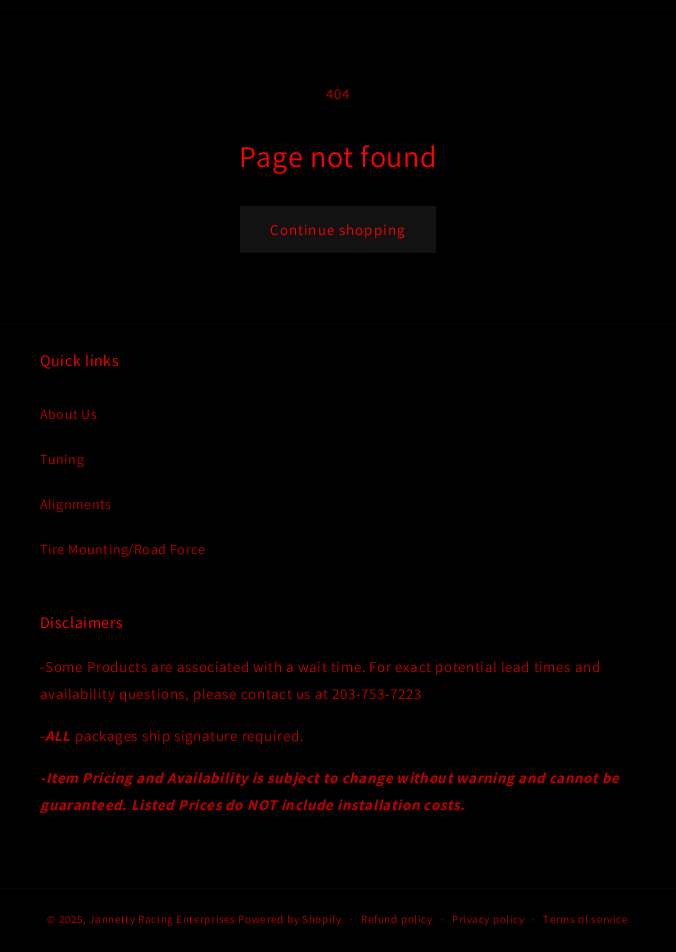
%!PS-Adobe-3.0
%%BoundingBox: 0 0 676 952
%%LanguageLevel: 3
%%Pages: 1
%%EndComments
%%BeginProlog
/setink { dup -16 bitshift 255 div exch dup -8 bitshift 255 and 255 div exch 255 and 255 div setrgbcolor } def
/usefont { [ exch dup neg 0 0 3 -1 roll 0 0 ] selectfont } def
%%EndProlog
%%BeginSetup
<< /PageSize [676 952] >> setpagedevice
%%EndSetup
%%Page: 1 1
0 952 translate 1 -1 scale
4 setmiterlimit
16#000000 setink
0 0 676 952 rectfill
16#140000 setink
0 9 676 1 rectfill
/Assistant-Regular 15 usefont
16#BF0000 setink
326 99 moveto 0.6 0 (404) ashow
/Assistant-Regular 30 usefont
16#FF0000 setink
239 167 moveto 0.6 0 (Page not found) ashow
16#121212 setink
240 206 196 47 rectfill
/Assistant-Regular 15 usefont
16#FF0000 setink
270 235 moveto 1 0 (Continue shopping) ashow
16#140000 setink
0 323 676 1 rectfill
/Assistant-Regular 16 usefont
16#FF0000 setink
40 366 moveto 0.6 0 (Quick links) ashow
/Assistant-Regular 14 usefont
16#BF0000 setink
40 419 moveto 0.6 0 (About Us) ashow
40 464 moveto 0.6 0 (Tuning) ashow
40 509 moveto 0.6 0 (Alignments) ashow
40 554 moveto 0.6 0 (Tire Mounting/Road Force) ashow
/Assistant-Regular 16 usefont
16#FF0000 setink
40 628 moveto 0.6 0 (Disclaimers) ashow
/Assistant-Regular 15 usefont
16#BF0000 setink
40 672 moveto 0.6 0 (-Some Products are associated with a wait time. For exact potential lead times and) ashow
40 699 moveto 0.6 0 (availability questions, please contact us at 203-753-7223) ashow
40 741 moveto 0.6 0 (-) ashow
/Assistant-BoldItalic 15 usefont
45 741 moveto 0.6 0 (ALL) ashow
/Assistant-Regular 15 usefont
75 741 moveto 0.6 0 (packages ship signature required.) ashow
/Assistant-BoldItalic 15 usefont
40 783 moveto 0.6 0 (-Item Pricing and Availability is subject to change without warning and cannot be) ashow
40 810 moveto 0.6 0 (guaranteed. Listed Prices do NOT include installation costs.) ashow
16#140000 setink
0 888 676 1 rectfill
/Assistant-Regular 11 usefont
16#BF0000 setink
47 923 moveto 0.7 0 (© 2025, Jannetty Racing Enterprises Powered by Shopify) ashow
/Assistant-Regular 10 usefont
350 923 moveto 0.7 0 (·) ashow
/Assistant-Regular 11 usefont
361 923 moveto 0.7 0 (Refund policy) ashow
/Assistant-Regular 10 usefont
441 923 moveto 0.7 0 (·) ashow
/Assistant-Regular 11 usefont
452 923 moveto 0.7 0 (Privacy policy) ashow
/Assistant-Regular 10 usefont
532 923 moveto 0.7 0 (·) ashow
/Assistant-Regular 11 usefont
543 923 moveto 0.7 0 (Terms of service) ashow
showpage
%%EOF
